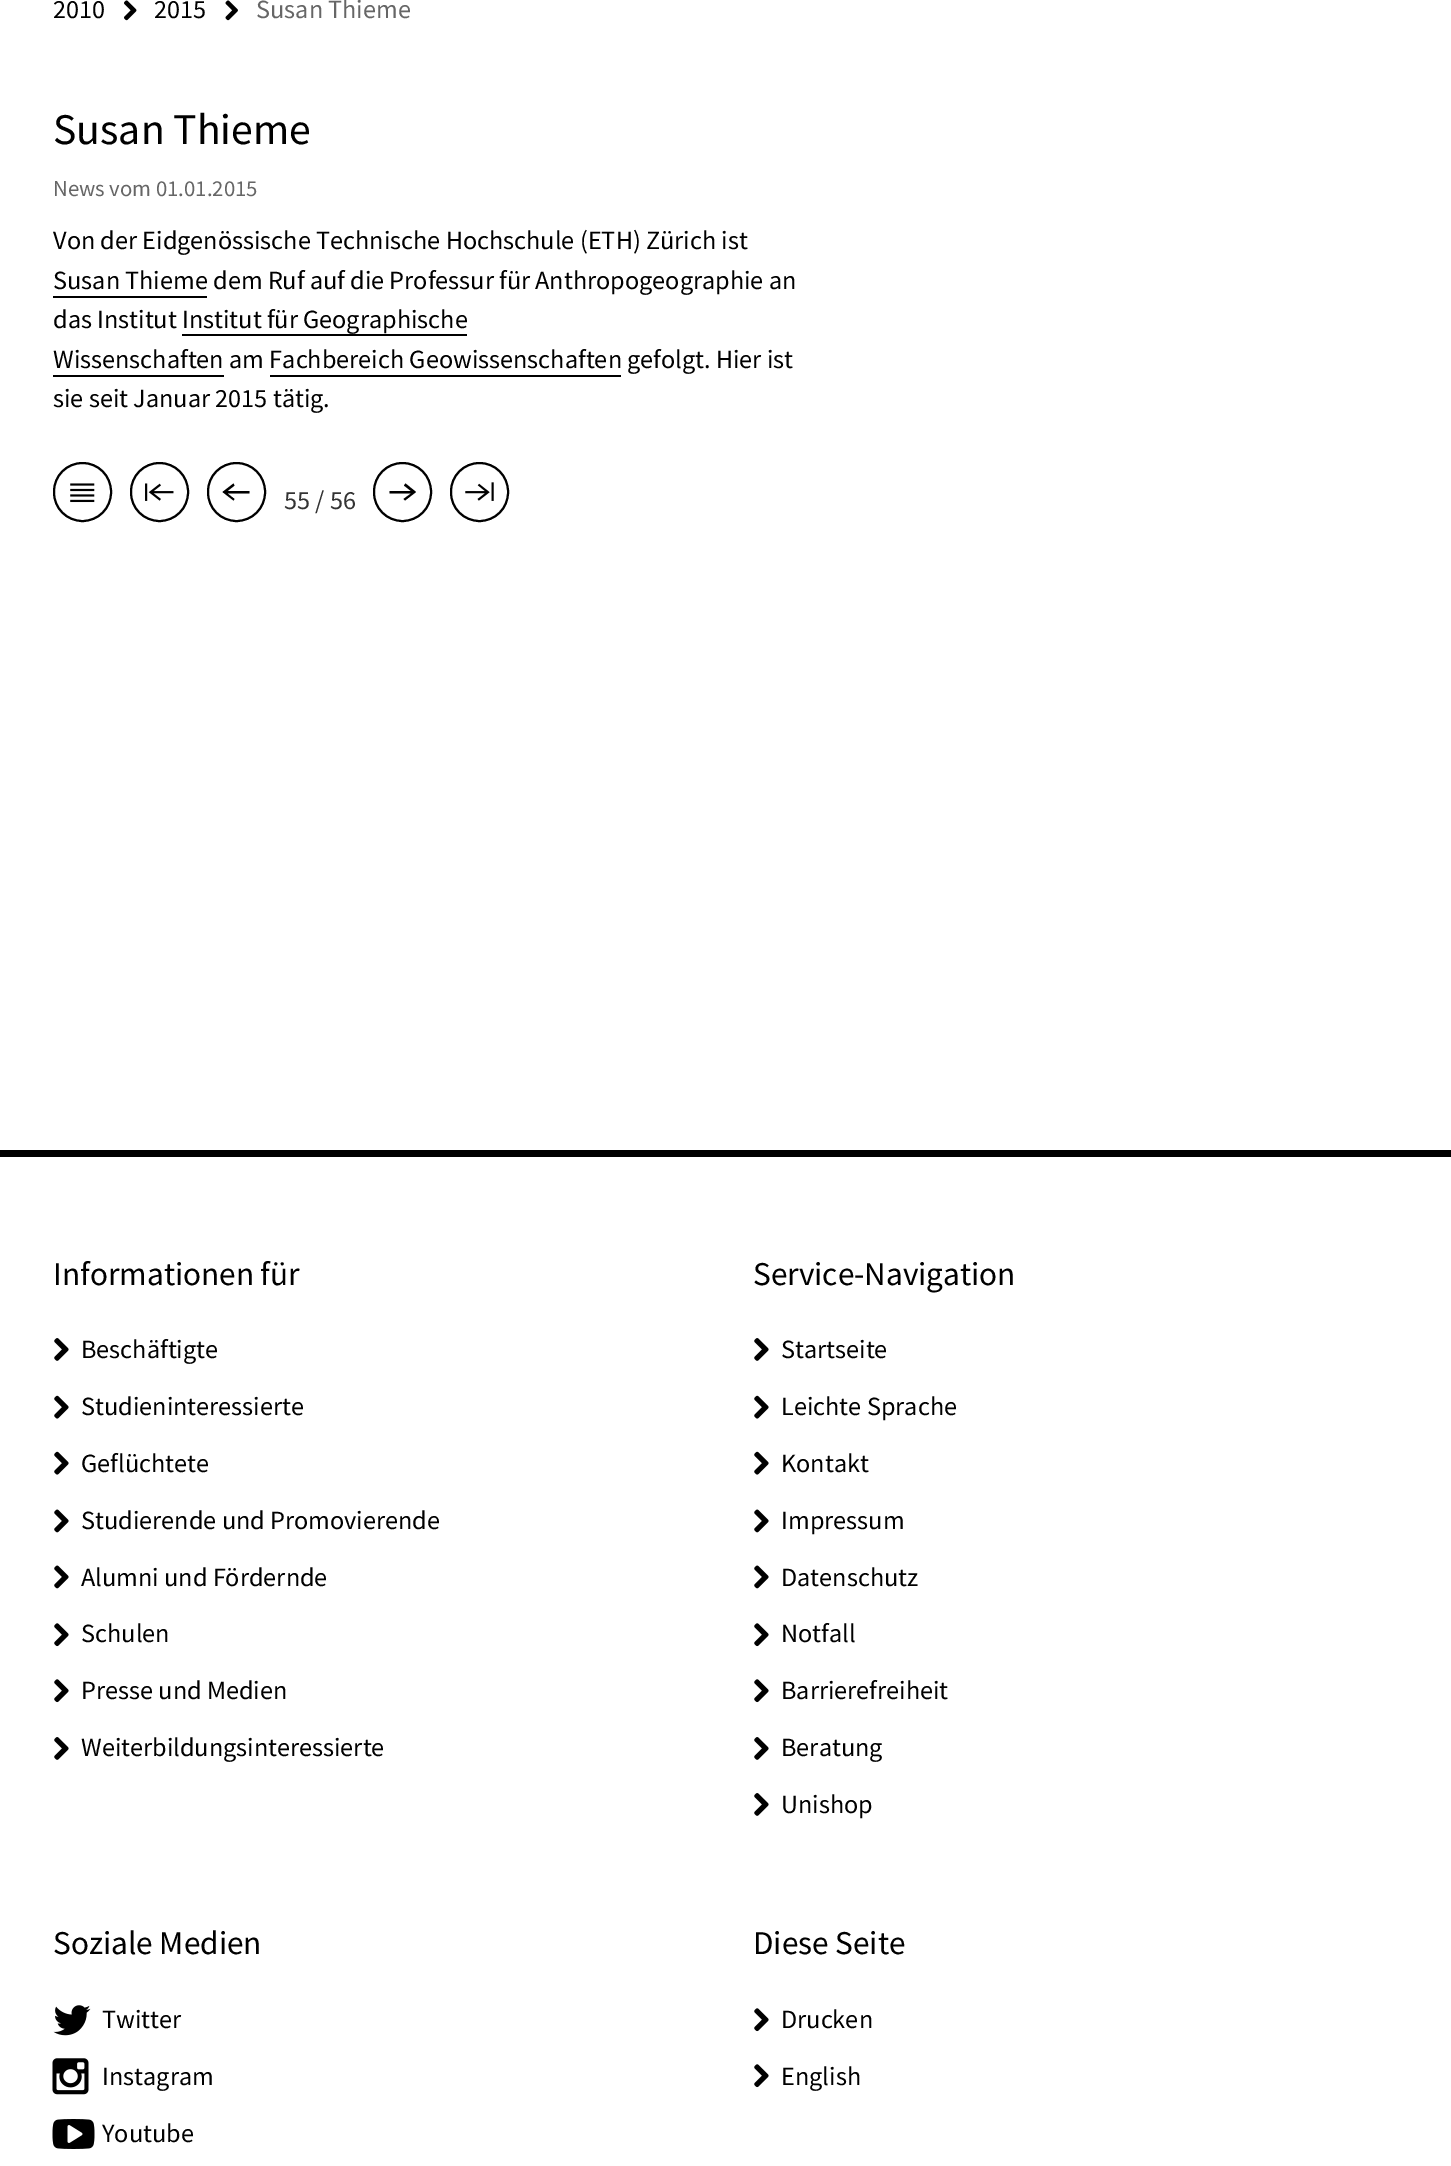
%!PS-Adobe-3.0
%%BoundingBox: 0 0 1451 2166
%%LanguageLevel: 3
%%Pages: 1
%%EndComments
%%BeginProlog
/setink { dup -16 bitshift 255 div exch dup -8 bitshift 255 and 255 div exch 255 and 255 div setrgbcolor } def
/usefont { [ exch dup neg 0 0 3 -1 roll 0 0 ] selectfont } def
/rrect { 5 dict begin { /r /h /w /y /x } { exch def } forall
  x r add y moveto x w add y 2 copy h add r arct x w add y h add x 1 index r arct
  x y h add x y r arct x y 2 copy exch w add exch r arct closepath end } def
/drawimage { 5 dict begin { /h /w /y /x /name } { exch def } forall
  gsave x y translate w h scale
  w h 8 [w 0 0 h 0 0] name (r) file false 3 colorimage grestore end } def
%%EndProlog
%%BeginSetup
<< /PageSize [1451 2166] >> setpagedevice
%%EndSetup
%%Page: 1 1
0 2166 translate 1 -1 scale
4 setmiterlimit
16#FFFFFF setink
0 0 1451 2166 rectfill
/SourceSansPro-Regular 26.25 usefont
16#000000 setink
53 18 moveto (2010) show
(img1.raw) 124 0 13 21 drawimage
154 18 moveto (2015) show
(img2.raw) 225 0 13 21 drawimage
16#666666 setink
256 18 moveto (Susan Thieme) show
/SourceSansPro-Regular 43.75 usefont
16#000000 setink
53 144 moveto (Susan Thieme) show
/SourceSansPro-Regular 22.75 usefont
16#666666 setink
53 196 moveto (News vom 01.01.2015) show
/SourceSansPro-Regular 26.25 usefont
16#000000 setink
53 249 moveto (Von der Eidgenössische Technische Hochschule \(ETH\) Zürich ist) show
53 289 moveto (Susan Thieme dem Ruf auf die Professur für Anthropogeographie an) show
53 296 154 2 rectfill
53 328 moveto (das Institut Institut für Geographische) show
53 368 moveto (Wissenschaften am Fachbereich Geowissenschaften gefolgt. Hier ist) show
[
    [182 334 285 2 16#000000]
    [53 375 171 2 16#000000]
    [270 375 351 2 16#000000]
] { aload pop setink rectfill } forall
53 407 moveto (sie seit Januar 2015 tätig.) show
2 setlinewidth
54 463 57 58 28.5 rrect stroke
(img3.raw) 70 483 25 20 drawimage
131 463 57 58 28.5 rrect stroke
(img4.raw) 145 483 29 18 drawimage
208 463 57 58 28.5 rrect stroke
249.5 491 moveto 227.5 491 lineto 234.5 485.5 lineto 233.5 483.5 lineto 222.5 492 lineto 233.5 500.5 lineto 234.5 499 lineto 227.5 493.5 lineto 249.5 493.5 lineto closepath fill
16#333333 setink
284 509 moveto (55 / 56) show
16#000000 setink
374 463 57 58 28.5 rrect stroke
405.5 483.5 moveto 404 485.5 lineto 411 491 lineto 389.5 491 lineto 389.5 493.5 lineto 411 493.5 lineto 403.5 499 lineto 405 500.5 lineto 416 492 lineto closepath fill
451 463 57 58 28.5 rrect stroke
(img5.raw) 465 482 29 19 drawimage
0 1150 1451 7 rectfill
/SourceSansPro-Regular 33.25 usefont
53 1285 moveto (Informationen für) show
(img6.raw) 54 1338 15 23 drawimage
/SourceSansPro-Regular 26.25 usefont
81 1358 moveto (Beschäftigte) show
(img7.raw) 54 1395 15 24 drawimage
81 1415 moveto (Studieninteressierte) show
(img7.raw) 54 1451 15 24 drawimage
81 1472 moveto (Geflüchtete) show
(img8.raw) 54 1509 15 24 drawimage
81 1529 moveto (Studierende und Promovierende) show
(img8.raw) 54 1565 15 24 drawimage
81 1586 moveto (Alumni und Fördernde) show
(img9.raw) 54 1623 15 24 drawimage
81 1642 moveto (Schulen) show
(img9.raw) 54 1679 15 24 drawimage
81 1699 moveto (Presse und Medien) show
(img6.raw) 54 1737 15 23 drawimage
81 1756 moveto (Weiterbildungsinteressierte) show
/SourceSansPro-Regular 33.25 usefont
753 1285 moveto (Service-Navigation) show
(img6.raw) 754 1338 15 23 drawimage
/SourceSansPro-Regular 26.25 usefont
781 1358 moveto (Startseite) show
(img7.raw) 754 1395 15 24 drawimage
781 1415 moveto (Leichte Sprache) show
(img7.raw) 754 1451 15 24 drawimage
781 1472 moveto (Kontakt) show
(img8.raw) 754 1509 15 24 drawimage
781 1529 moveto (Impressum) show
(img8.raw) 754 1565 15 24 drawimage
781 1586 moveto (Datenschutz) show
(img9.raw) 754 1623 15 24 drawimage
781 1642 moveto (Notfall) show
(img9.raw) 754 1679 15 24 drawimage
781 1699 moveto (Barrierefreiheit) show
(img6.raw) 754 1737 15 23 drawimage
781 1756 moveto (Beratung) show
(img6.raw) 754 1793 15 23 drawimage
781 1813 moveto (Unishop) show
/SourceSansPro-Regular 33.25 usefont
53 1954 moveto (Soziale Medien) show
(img10.raw) 53 2005 38 31 drawimage
/SourceSansPro-Regular 26.25 usefont
102 2028 moveto (Twitter) show
(img11.raw) 52 2058 37 37 drawimage
102 2085 moveto (Instagram) show
(img12.raw) 52 2119 43 30 drawimage
102 2142 moveto (Youtube) show
/SourceSansPro-Regular 33.25 usefont
753 1954 moveto (Diese Seite) show
(img13.raw) 754 2008 15 24 drawimage
/SourceSansPro-Regular 26.25 usefont
781 2028 moveto (Drucken) show
(img9.raw) 754 2064 15 24 drawimage
781 2085 moveto (English) show
showpage
%%EOF
